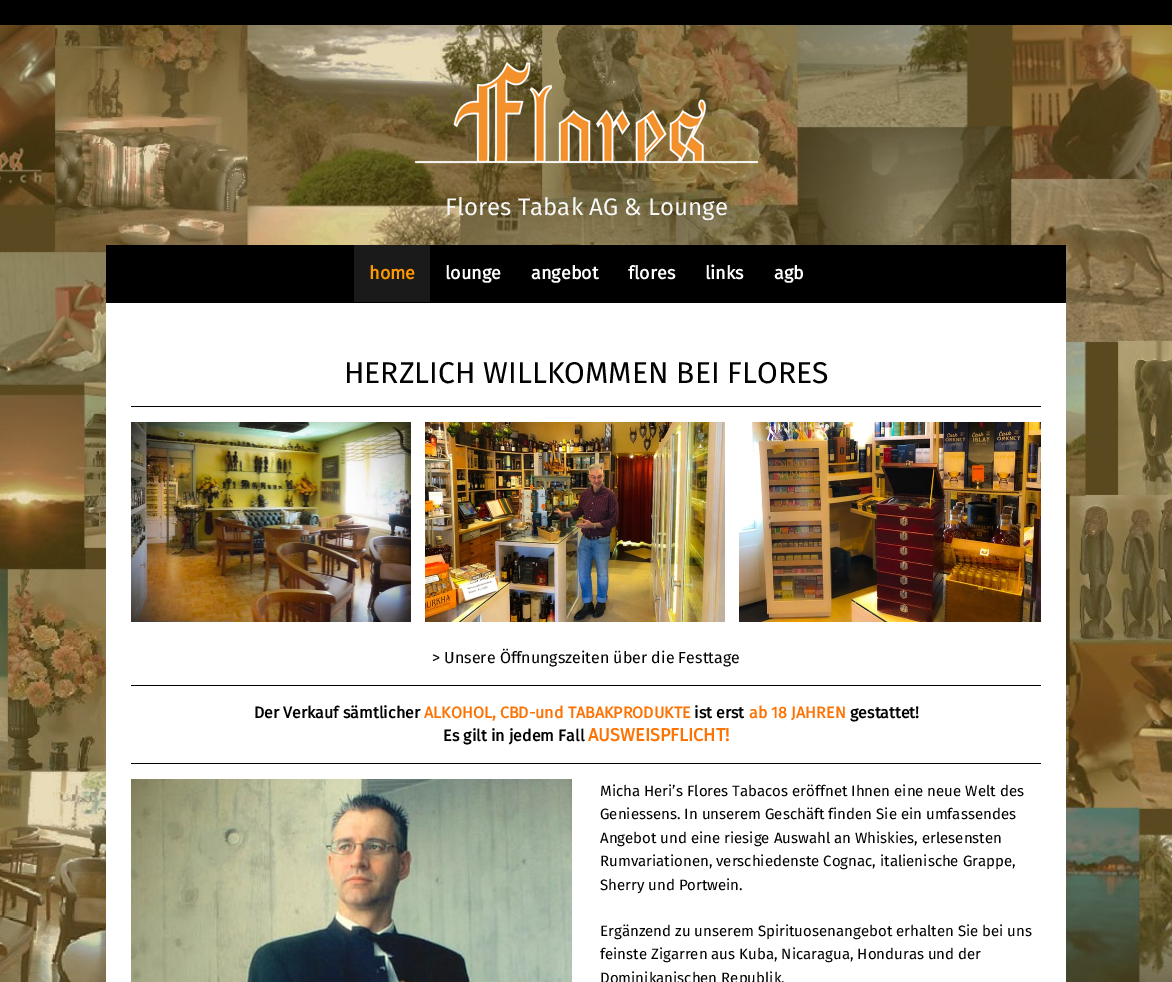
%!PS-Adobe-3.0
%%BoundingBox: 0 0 1172 982
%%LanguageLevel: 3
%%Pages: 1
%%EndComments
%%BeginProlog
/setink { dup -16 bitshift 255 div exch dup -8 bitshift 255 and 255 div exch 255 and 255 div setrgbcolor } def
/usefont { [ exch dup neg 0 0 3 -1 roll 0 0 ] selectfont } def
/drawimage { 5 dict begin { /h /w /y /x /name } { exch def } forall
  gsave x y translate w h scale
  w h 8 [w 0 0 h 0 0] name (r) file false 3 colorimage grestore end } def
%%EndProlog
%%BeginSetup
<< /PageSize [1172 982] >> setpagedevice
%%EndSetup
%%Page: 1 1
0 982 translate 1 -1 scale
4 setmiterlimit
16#FFFFFF setink
0 0 1172 982 rectfill
(img1.raw) 0 25 1172 957 drawimage
16#000000 setink
0 0 1172 25 rectfill
(img2.raw) 414 61 345 103 drawimage
/FiraSans-Regular 24 usefont
16#F7F8F8 setink
445 215 moveto (Flores Tabak AG & Lounge) show
16#000000 setink
106 245 960 58 rectfill
16#1A1A1A setink
354 245 76 57 rectfill
/FiraSans-Bold 18 usefont
16#FF9900 setink
369 279 moveto (home) show
16#FFFFFF setink
[
    [(lounge) 445 279]
    [(angebot) 531 279]
    [(flores) 628 279]
    [(links) 705 279]
    [(agb) 774 279]
] { aload pop moveto show } forall
106 303 960 679 rectfill
/FiraSans-Regular 30 usefont
16#000000 setink
344 383 moveto (HERZLICH WILLKOMMEN BEI FLORES) show
131 406 910 1 rectfill
(img3.raw) 131 422 280 200 drawimage
(img4.raw) 425 422 300 200 drawimage
(img5.raw) 739 422 302 200 drawimage
/FiraSans-Regular 16 usefont
432 663 moveto (> Unsere Öffnungszeiten über die Festtage) show
131 685 910 1 rectfill
/FiraSans-Bold 16 usefont
254 718 moveto (Der Verkauf sämtlicher) show
16#FC7303 setink
424 718 moveto (ALKOHOL, CBD-und TABAKPRODUKTE) show
16#000000 setink
694 718 moveto (ist erst) show
16#FC7303 setink
749 718 moveto (ab 18 JAHREN) show
16#000000 setink
850 718 moveto (gestattet!) show
443 741 moveto (Es gilt in jedem Fall) show
/FiraSans-Bold 18 usefont
16#FC7303 setink
588 741 moveto (AUSWEISPFLICHT!) show
16#000000 setink
131 763 910 1 rectfill
(img6.raw) 131 779 441 203 drawimage
/FiraSans-Regular 15 usefont
[
    [(Micha Heri’s Flores Tabacos eröffnet Ihnen eine neue Welt des) 600 796]
    [(Geniessens. In unserem Geschäft finden Sie ein umfassendes) 600 819]
    [(Angebot und eine riesige Auswahl an Whiskies, erlesensten) 600 843]
    [(Rumvariationen, verschiedenste Cognac, italienische Grappe,) 600 866]
    [(Sherry und Portwein.) 600 890]
    [(Ergänzend zu unserem Spirituosenangebot erhalten Sie bei uns) 600 936]
    [(feinste Zigarren aus Kuba, Nicaragua, Honduras und der) 600 959]
    [(Dominikanischen Republik.) 600 983]
] { aload pop moveto show } forall
showpage
%%EOF
